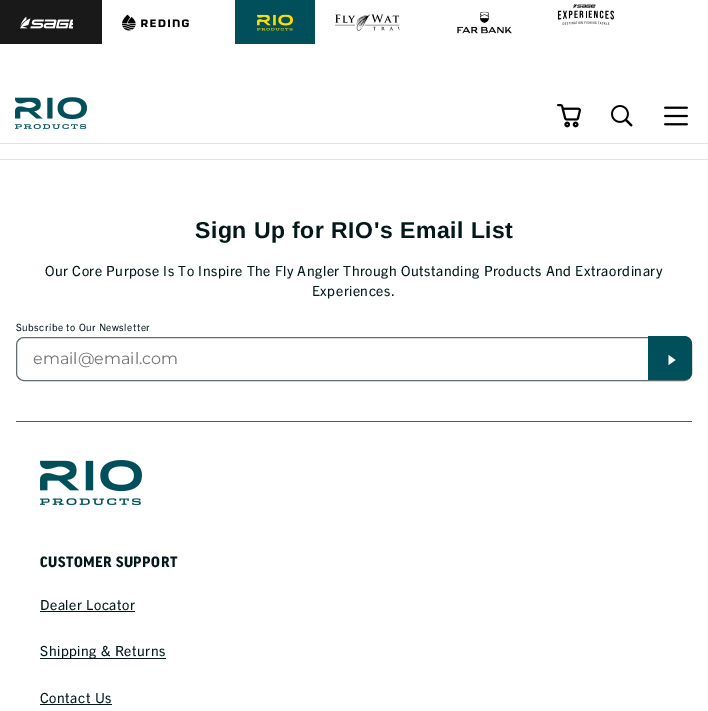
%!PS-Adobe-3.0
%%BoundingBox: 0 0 708 711
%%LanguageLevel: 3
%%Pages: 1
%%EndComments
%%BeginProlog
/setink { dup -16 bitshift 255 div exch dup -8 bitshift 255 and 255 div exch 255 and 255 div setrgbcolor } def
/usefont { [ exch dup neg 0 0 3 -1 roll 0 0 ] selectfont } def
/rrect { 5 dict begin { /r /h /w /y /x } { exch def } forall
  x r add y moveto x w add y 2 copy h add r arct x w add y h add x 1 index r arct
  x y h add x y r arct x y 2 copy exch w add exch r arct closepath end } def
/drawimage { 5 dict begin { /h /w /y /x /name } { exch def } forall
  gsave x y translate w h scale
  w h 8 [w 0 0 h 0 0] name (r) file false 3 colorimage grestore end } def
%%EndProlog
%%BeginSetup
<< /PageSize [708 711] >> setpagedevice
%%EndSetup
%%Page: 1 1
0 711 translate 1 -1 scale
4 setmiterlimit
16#FFFFFF setink
0 0 708 711 rectfill
16#1A1919 setink
0 0 102 44 rectfill
(img1.raw) 20 16 53 13 drawimage
(img2.raw) 122 14 69 17 drawimage
16#004F5A setink
235 0 80 44 rectfill
(img3.raw) 257 14 36 17 drawimage
(img4.raw) 335 14 65 17 drawimage
(img5.raw) 457 11 55 23 drawimage
(img6.raw) 557 3 57 22 drawimage
16#DAE3E7 setink
0 143 708 1 rectfill
(img7.raw) 15 97 72 32 drawimage
(img8.raw) 557 104 24 24 drawimage
(img9.raw) 611 105 22 22 drawimage
(img10.raw) 664 106 24 20 drawimage
0 159 708 1 rectfill
16#4F5D5F setink
16 421 676 1 rectfill
/LiberationSans-Bold 23 usefont
16#04181A setink
195 238 moveto 0.5 0 (Sign Up for RIO's Email List) ashow
/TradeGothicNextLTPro-Regular 14 usefont
45 276 moveto 0.5 0 (Our Core Purpose Is To Inspire The Fly Angler Through Outstanding Products And Extraordinary) ashow
312 296 moveto 0.5 0 (Experiences.) ashow
/TradeGothicNextLTPro-Regular 10 usefont
16 331 moveto 0.5 0 (Subscribe to Our Newsletter) ashow
16#636E71 setink
16.5 337.5 675 43 7.5 rrect stroke
/Montserrat-Regular 16 usefont
16#757575 setink
33 364 moveto (email@email.com) show
16#004F5A setink
648 336 moveto 684 336 lineto 688.5 336 692 339.5 692 344 curveto 692 372 lineto 692 376.5 688.5 380 684 380 curveto 648 380 lineto closepath fill
16#FFFFFF setink
675.5 360 moveto 668.5 365 lineto 668.5 355 lineto closepath fill
(img11.raw) 40 460 102 45 drawimage
/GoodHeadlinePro-Bold 16 usefont
16#04181A setink
40 567 moveto 0.5 0 (CUSTOMER SUPPORT) ashow
/TradeGothicNextLTPro-Regular 14 usefont
40 610 moveto 0.5 0 (Dealer Locator) ashow
40 611 95 1 rectfill
40 658 126 1 rectfill
40 656 moveto 0.5 0 (Shipping & Returns) ashow
40 703 moveto 0.5 0 (Contact Us) ashow
40 704 72 1 rectfill
showpage
%%EOF
